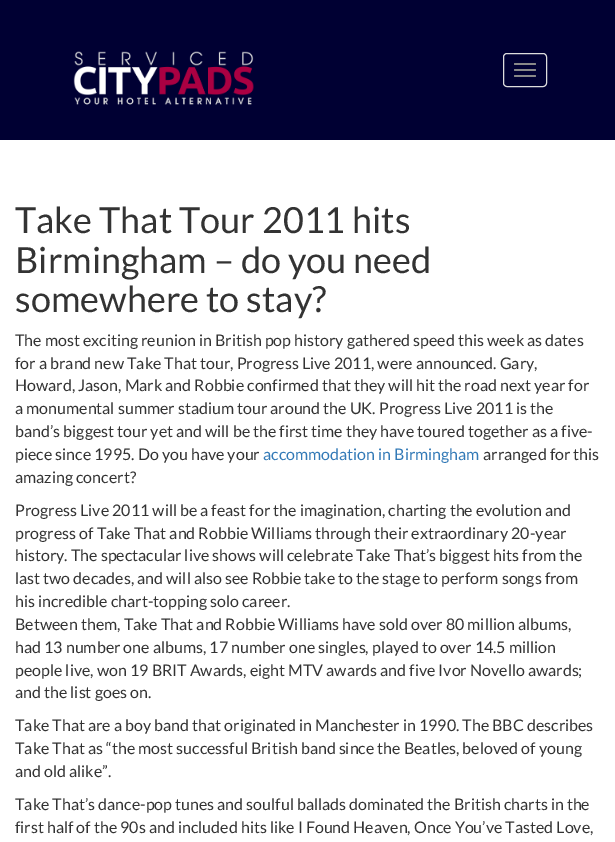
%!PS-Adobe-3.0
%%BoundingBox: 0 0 615 842
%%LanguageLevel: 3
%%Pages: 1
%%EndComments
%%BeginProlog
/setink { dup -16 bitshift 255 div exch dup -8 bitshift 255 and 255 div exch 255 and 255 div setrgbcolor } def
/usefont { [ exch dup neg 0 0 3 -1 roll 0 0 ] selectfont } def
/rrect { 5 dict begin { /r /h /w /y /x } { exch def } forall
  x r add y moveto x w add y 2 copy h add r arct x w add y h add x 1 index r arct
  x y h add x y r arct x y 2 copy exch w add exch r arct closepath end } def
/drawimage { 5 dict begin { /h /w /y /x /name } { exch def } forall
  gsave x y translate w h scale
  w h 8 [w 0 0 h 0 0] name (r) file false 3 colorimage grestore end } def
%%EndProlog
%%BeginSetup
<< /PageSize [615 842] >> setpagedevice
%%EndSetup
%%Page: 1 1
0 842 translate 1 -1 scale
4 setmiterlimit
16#FFFFFF setink
0 0 615 842 rectfill
16#000033 setink
0 0 615 140 rectfill
(img1.raw) 73 51 181 54 drawimage
16#DDDDDD setink
503.5 53.5 43 33 3.5 rrect stroke
16#888888 setink
514 63 22 2 1 rrect fill
514 69 22 2 1 rrect fill
514 75 22 2 1 rrect fill
/Lato-Regular 36 usefont
16#333333 setink
[
    [(Take That Tour 2011 hits) 15 233]
    [(Birmingham – do you need) 15 273]
    [(somewhere to stay?) 15 312]
] { aload pop moveto show } forall
/Lato-Regular 16 usefont
[
    [(The most exciting reunion in British pop history gathered speed this week as dates) 15 346]
    [(for a brand new Take That tour, Progress Live 2011, were announced. Gary,) 15 369]
    [(Howard, Jason, Mark and Robbie confirmed that they will hit the road next year for) 15 391]
    [(a monumental summer stadium tour around the UK. Progress Live 2011 is the) 15 414]
    [(band’s biggest tour yet and will be the first time they have toured together as a five-) 15 437]
    [(piece since 1995. Do you have your) 15 460]
] { aload pop moveto show } forall
16#337AB7 setink
263 460 moveto (accommodation in Birmingham) show
16#333333 setink
[
    [(arranged for this) 483 460]
    [(amazing concert?) 15 483]
    [(Progress Live 2011 will be a feast for the imagination, charting the evolution and) 15 516]
    [(progress of Take That and Robbie Williams through their extraordinary 20-year) 15 539]
    [(history. The spectacular live shows will celebrate Take That’s biggest hits from the) 15 561]
    [(last two decades, and will also see Robbie take to the stage to perform songs from) 15 584]
    [(his incredible chart-topping solo career.) 15 607]
    [(Between them, Take That and Robbie Williams have sold over 80 million albums,) 15 630]
    [(had 13 number one albums, 17 number one singles, played to over 14.5 million) 15 653]
    [(people live, won 19 BRIT Awards, eight MTV awards and five Ivor Novello awards;) 15 676]
    [(and the list goes on.) 15 698]
    [(Take That are a boy band that originated in Manchester in 1990. The BBC describes) 15 731]
    [(Take That as “the most successful British band since the Beatles, beloved of young) 15 754]
    [(and old alike”.) 15 777]
    [(Take That’s dance-pop tunes and soulful ballads dominated the British charts in the) 15 810]
    [(first half of the 90s and included hits like I Found Heaven, Once You’ve Tasted Love,) 15 833]
] { aload pop moveto show } forall
showpage
%%EOF
